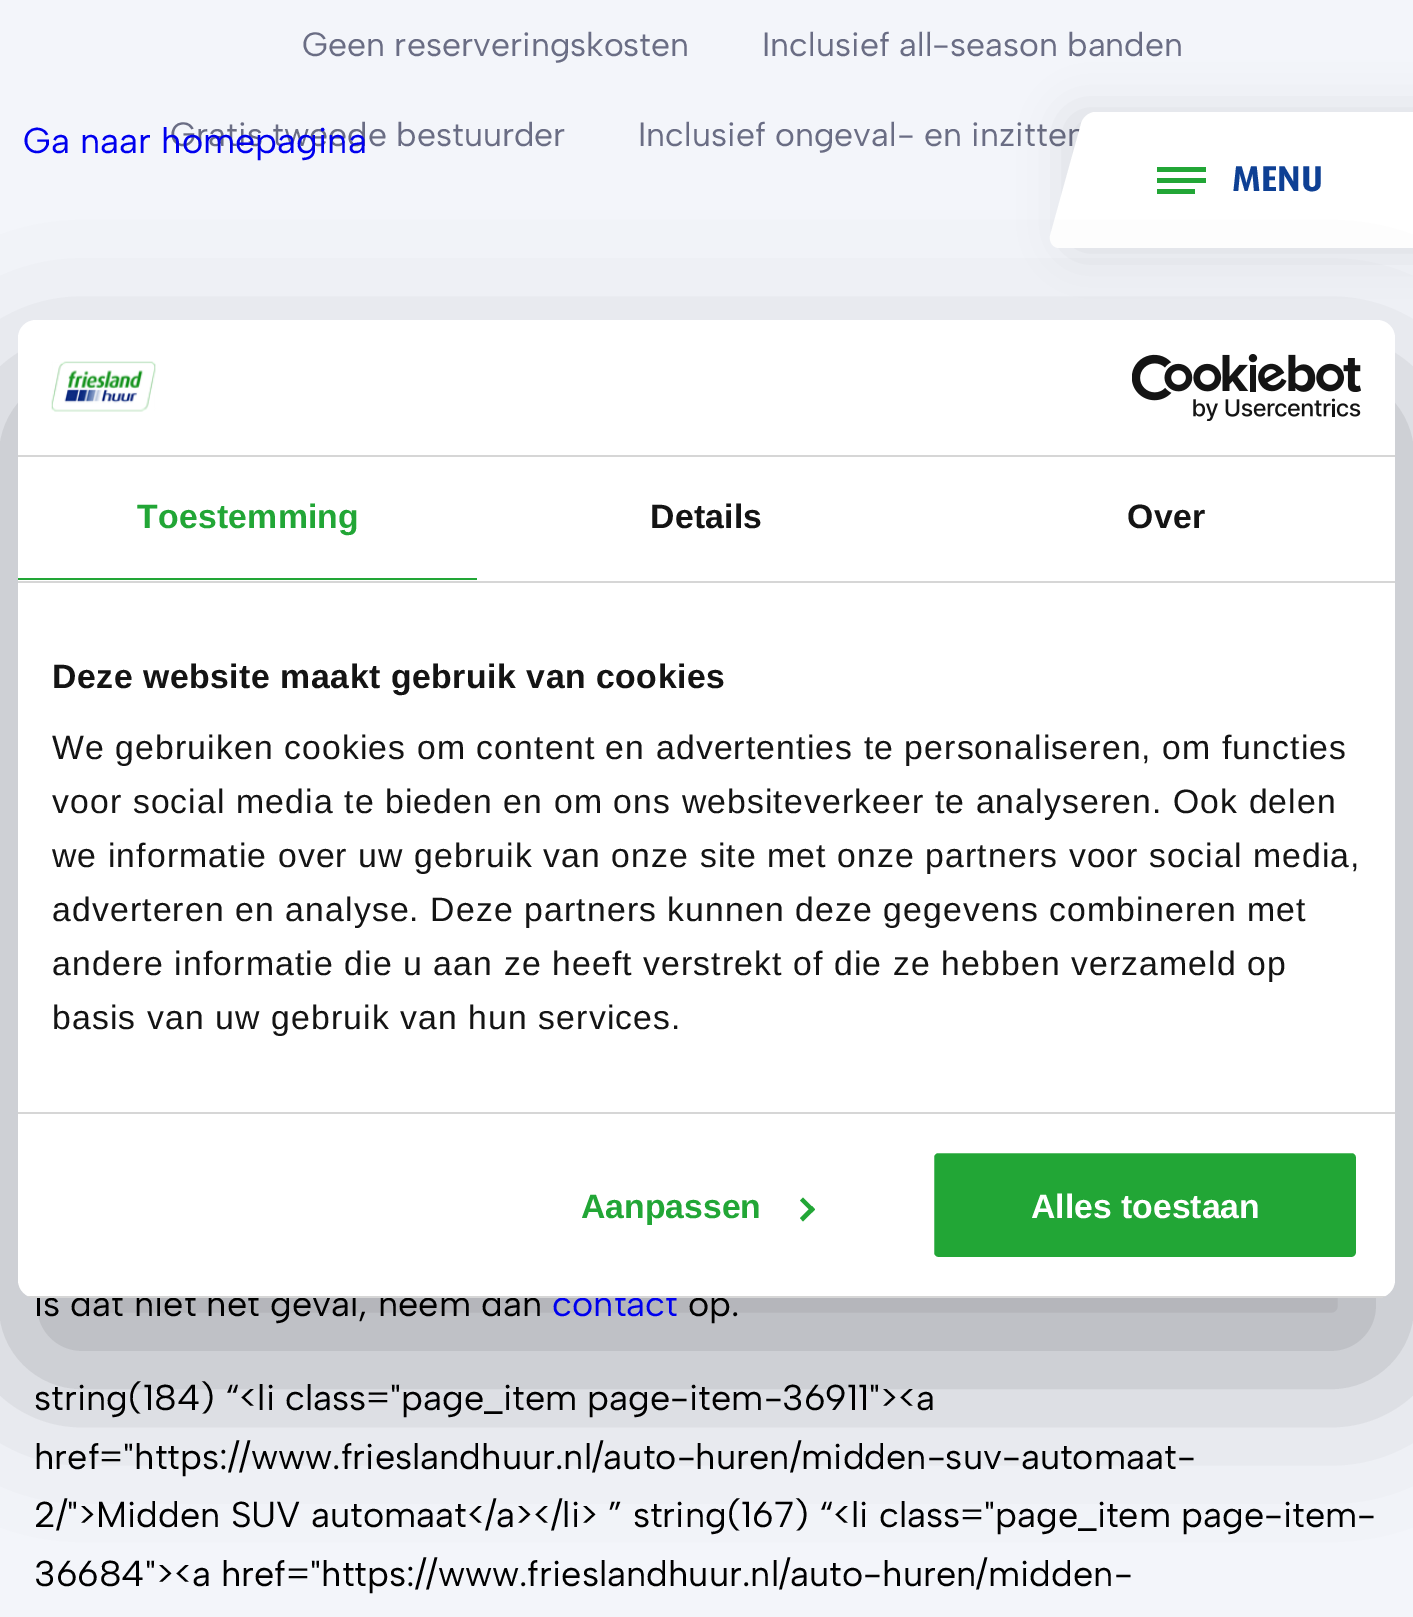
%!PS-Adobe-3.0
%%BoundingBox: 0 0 1413 1617
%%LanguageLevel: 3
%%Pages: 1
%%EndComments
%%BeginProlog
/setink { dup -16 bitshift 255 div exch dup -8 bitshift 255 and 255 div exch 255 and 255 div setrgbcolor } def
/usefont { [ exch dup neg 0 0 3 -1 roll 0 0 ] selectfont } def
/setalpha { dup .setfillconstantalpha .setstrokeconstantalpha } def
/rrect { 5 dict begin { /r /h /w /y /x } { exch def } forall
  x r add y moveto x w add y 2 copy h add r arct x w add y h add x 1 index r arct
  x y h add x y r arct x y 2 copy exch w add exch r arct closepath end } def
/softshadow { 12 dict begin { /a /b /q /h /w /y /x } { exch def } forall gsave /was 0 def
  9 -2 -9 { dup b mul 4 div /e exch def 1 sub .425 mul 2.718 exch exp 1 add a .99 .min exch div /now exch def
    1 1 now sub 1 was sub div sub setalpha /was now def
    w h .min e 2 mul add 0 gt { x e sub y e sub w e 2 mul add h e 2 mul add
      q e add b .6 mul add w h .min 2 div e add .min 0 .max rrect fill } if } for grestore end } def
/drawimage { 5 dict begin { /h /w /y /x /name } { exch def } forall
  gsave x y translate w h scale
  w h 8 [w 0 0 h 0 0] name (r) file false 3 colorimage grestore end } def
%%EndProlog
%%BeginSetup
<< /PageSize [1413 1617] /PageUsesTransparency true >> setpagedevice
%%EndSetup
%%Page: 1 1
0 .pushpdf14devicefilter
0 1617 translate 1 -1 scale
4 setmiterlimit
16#F3F5FA setink
0 0 1413 1617 rectfill
/AlbertSans-Regular 33.75 usefont
16#6A6D84 setink
[
    [(Geen reserveringskosten) 302 56]
    [(Inclusief all-season banden) 762 56]
    [(Gratis tweede bestuurder) 170 146]
    [(Inclusief ongeval- en inzitten) 638 146]
] { aload pop moveto show } forall
/AlbertSans-Regular 36 usefont
16#0000EE setink
23 153 moveto (Ga naar homepagina) show
16#000000 setink
1067 113 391 135 11 22.5 0.1 softshadow
16#FFFFFF setink
1095 112 moveto 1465 112 lineto 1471 112 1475 118 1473 124 curveto 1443 236 lineto 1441 242 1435 248 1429 248 curveto 1059 248 lineto 1053 248 1049 242 1050 236 curveto 1081 124 lineto 1082 118 1089 112 1095 112 curveto closepath fill
[
    [1157 167 49 5 16#22A636]
    [1157 178 49 5 16#22A636]
    [1157 189 38 5 16#22A636]
] { aload pop setink rectfill } forall
/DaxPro-Bold 36 usefont
16#0E4094 setink
1232 191 moveto (MENU) show
16#000000 setink
18 392 1377 978 18 76.5 0.3 softshadow
/AlbertSans-Regular 36 usefont
34 1316 moveto (Is dat niet het geval, neem dan) show
16#0000EE setink
552 1316 moveto (contact) show
16#000000 setink
688 1316 moveto (op.) show
16#FFFFFF setink
18 320 1377 978 18 rrect fill
16#D6D6D6 setink
18 455 1377 2 rectfill
(img1.raw) 51 361 105 51 drawimage
(img2.raw) 1132 354 229 67 drawimage
18 581 1377 2 rectfill
16#22A636 setink
18 578 459 2 rectfill
/LiberationSans-Bold 33.75 usefont
137 528 moveto 0.25 0 (Toestemming) ashow
16#141414 setink
650 528 moveto 0.25 0 (Details) ashow
1127 528 moveto 0.25 0 (Over) ashow
16#D6D6D6 setink
18 1112 1377 2 rectfill
16#141414 setink
52 688 moveto 0.55 0 (Deze website maakt gebruik van cookies) ashow
/LiberationSans-Regular 33.75 usefont
52 759 moveto 1.12 0 (We gebruiken cookies om content en advertenties te personaliseren, om functies) ashow
52 813 moveto 1.12 0 (voor social media te bieden en om ons websiteverkeer te analyseren. Ook delen) ashow
52 867 moveto 1.12 0 (we informatie over uw gebruik van onze site met onze partners voor social media,) ashow
52 921 moveto 1.12 0 (adverteren en analyse. Deze partners kunnen deze gegevens combineren met) ashow
52 975 moveto 1.12 0 (andere informatie die u aan ze heeft verstrekt of die ze hebben verzameld op) ashow
52 1029 moveto 1.12 0 (basis van uw gebruik van hun services.) ashow
gsave
18 320 1377 978 18 rrect clip newpath
16#D6D6D6 setink
28 1296 1357 2 rectfill
grestore
/LiberationSans-Bold 33.75 usefont
16#22A636 setink
581 1218 moveto (Aanpassen) show
803 1197.5 moveto 815 1209.5 lineto 812 1212.5 lineto 800 1200.5 lineto closepath fill
812 1206 moveto 815 1209.5 lineto 803 1221.5 lineto 800 1218 lineto closepath fill
931.5 1150.5 427 109 6.5 rrect gsave fill grestore
16#FFFFFF setink
5 setlinewidth
stroke
1031 1218 moveto (Alles toestaan) show
/AlbertSans-Regular 36 usefont
16#000000 setink
[
    [(string\(184\) “<li class="page_item page-item-36911"><a) 34 1410]
    [(href="https://www.frieslandhuur.nl/auto-huren/midden-suv-automaat-) 34 1469]
    [(2/">Midden SUV automaat</a></li> ” string\(167\) “<li class="page_item page-item-) 34 1527]
    [(36684"><a href="https://www.frieslandhuur.nl/auto-huren/midden-) 34 1586]
] { aload pop moveto show } forall
.poppdf14devicefilter showpage
%%EOF
